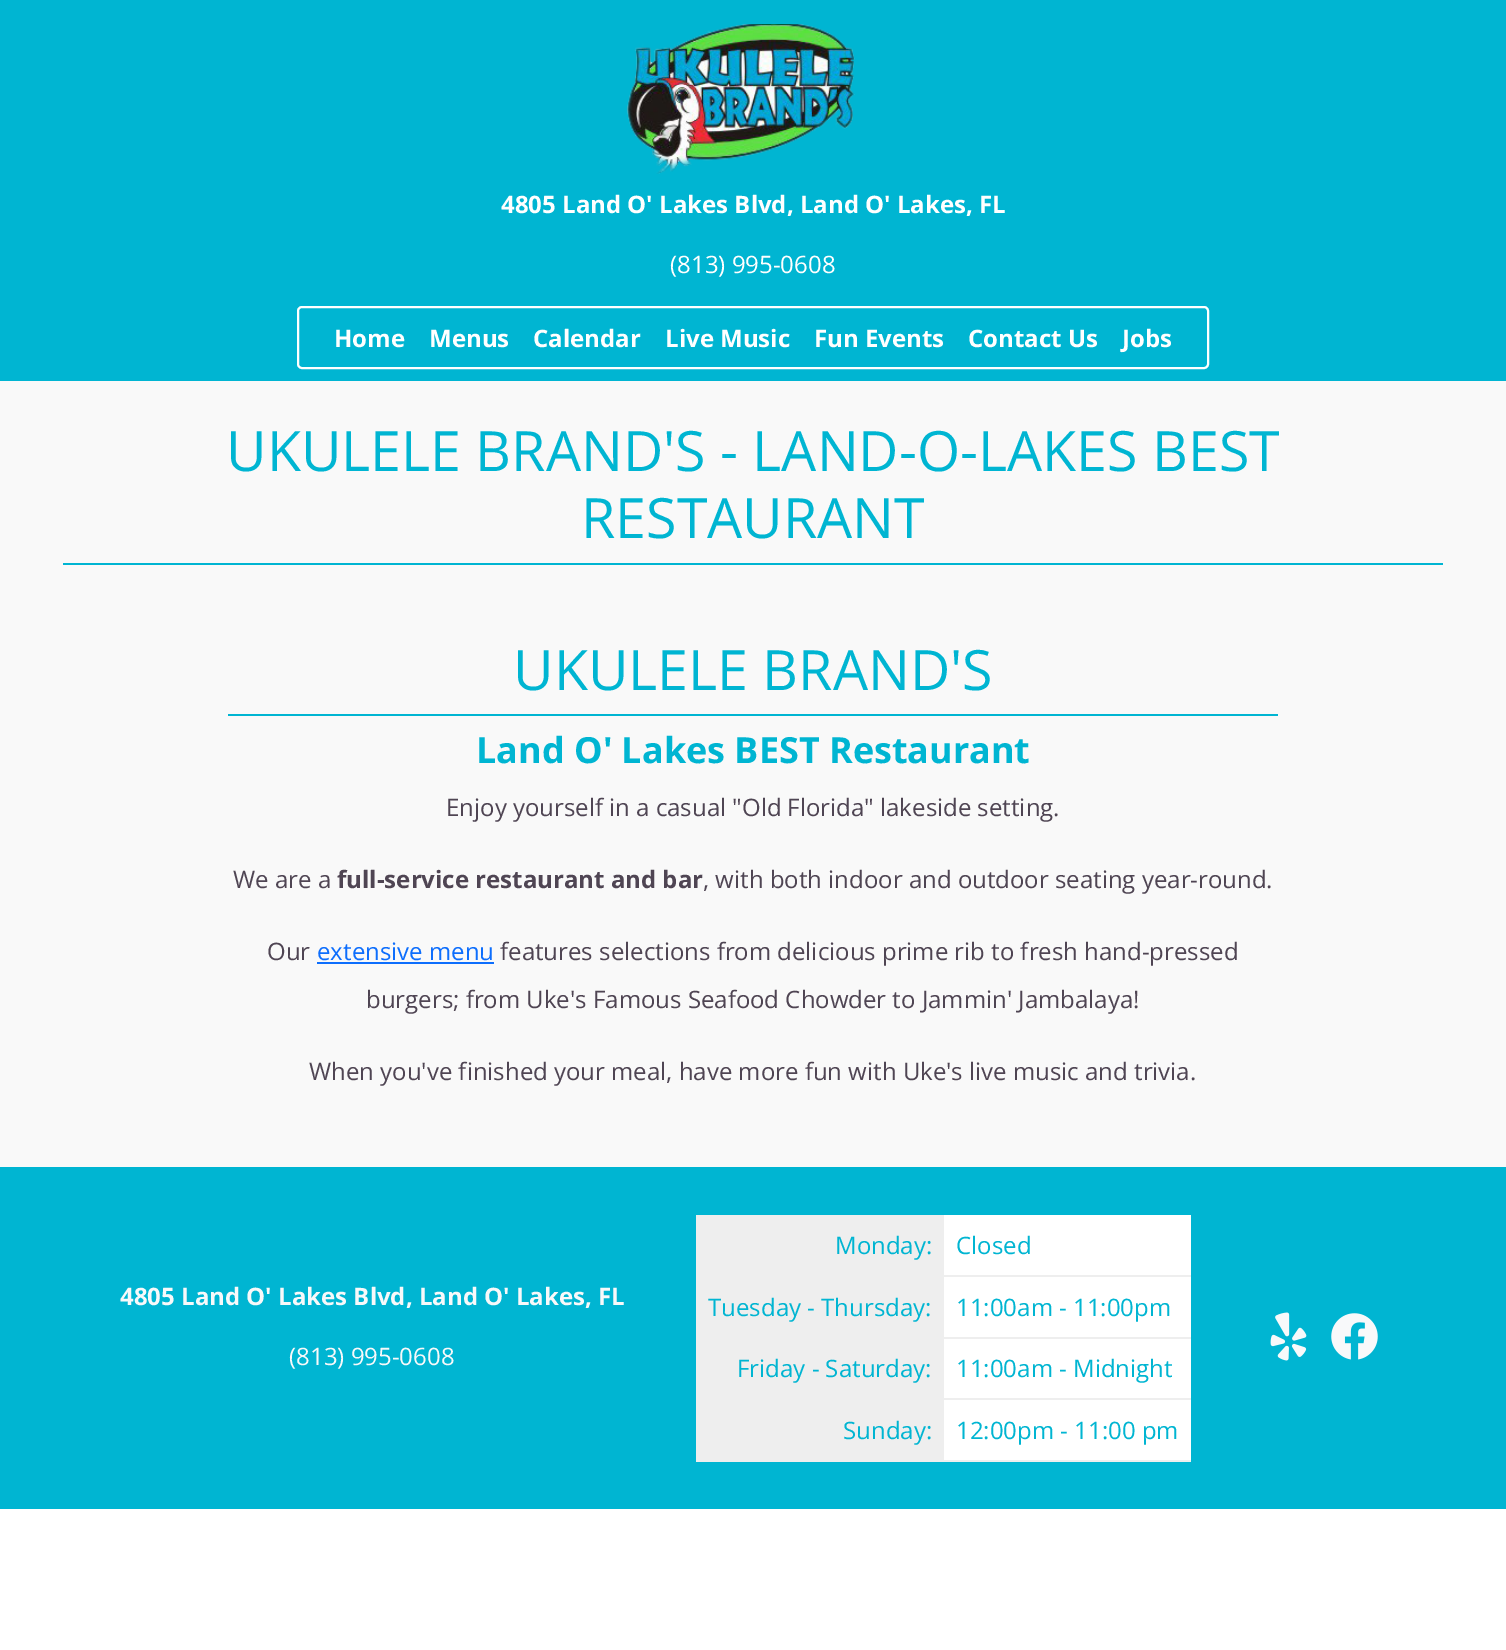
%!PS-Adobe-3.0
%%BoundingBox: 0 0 1506 1650
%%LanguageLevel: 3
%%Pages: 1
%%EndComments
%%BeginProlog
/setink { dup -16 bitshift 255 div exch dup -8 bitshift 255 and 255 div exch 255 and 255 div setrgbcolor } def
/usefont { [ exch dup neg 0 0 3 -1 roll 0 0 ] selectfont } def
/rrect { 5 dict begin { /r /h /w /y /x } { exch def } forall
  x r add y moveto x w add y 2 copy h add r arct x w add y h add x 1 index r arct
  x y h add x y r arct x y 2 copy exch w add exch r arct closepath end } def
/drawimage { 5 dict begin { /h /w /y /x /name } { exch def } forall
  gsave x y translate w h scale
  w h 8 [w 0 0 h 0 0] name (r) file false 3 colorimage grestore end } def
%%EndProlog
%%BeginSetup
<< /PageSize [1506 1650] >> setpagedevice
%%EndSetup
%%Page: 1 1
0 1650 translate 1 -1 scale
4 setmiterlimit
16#FFFFFF setink
0 0 1506 1650 rectfill
16#00B5D2 setink
0 0 1506 381 rectfill
(img1.raw) 627 24 228 150 drawimage
/OpenSans-Bold 24 usefont
16#FFFFFF setink
501 213 moveto (4805 Land O' Lakes Blvd, Land O' Lakes, FL) show
/OpenSans-Regular 24 usefont
670 273 moveto (\(813\) 995-0608) show
2 setlinewidth
298 307 910 61 4 rrect stroke
/OpenSans-Bold 24 usefont
[
    [(Home) 334 347]
    [(Menus) 429 347]
    [(Calendar) 533 347]
    [(Live Music) 665 347]
    [(Fun Events) 814 347]
    [(Contact Us) 968 347]
    [(Jobs) 1122 347]
] { aload pop moveto show } forall
16#F9F9F9 setink
0 381 1506 786 rectfill
16#00B5D2 setink
63 563 1380 2 rectfill
/OpenSans-Regular 55.6 usefont
226 471 moveto (UKULELE BRAND'S - LAND-O-LAKES BEST) show
581 538 moveto (RESTAURANT) show
228 714 1050 2 rectfill
513 690 moveto (UKULELE BRAND'S) show
/OpenSans-Bold 36 usefont
476 763 moveto (Land O' Lakes BEST Restaurant) show
/OpenSans-Regular 24 usefont
16#4F4553 setink
446 816 moveto (Enjoy yourself in a casual "Old Florida" lakeside setting.) show
233 888 moveto (We are a) show
/OpenSans-Bold 24 usefont
337 888 moveto (full-service restaurant and bar) show
/OpenSans-Regular 24 usefont
703 888 moveto (, with both indoor and outdoor seating year-round.) show
267 960 moveto (Our) show
16#0D6EFD setink
317 960 moveto (extensive menu) show
317 962 177 2 rectfill
16#4F4553 setink
[
    [(features selections from delicious prime rib to fresh hand-pressed) 500 960]
    [(burgers; from Uke's Famous Seafood Chowder to Jammin' Jambalaya!) 366 1008]
    [(When you've finished your meal, have more fun with Uke's live music and trivia.) 309 1080]
] { aload pop moveto show } forall
16#00B5D2 setink
0 1167 1506 342 rectfill
/OpenSans-Bold 24 usefont
16#F8F9FA setink
120 1305 moveto (4805 Land O' Lakes Blvd, Land O' Lakes, FL) show
/OpenSans-Regular 24 usefont
289 1365 moveto (\(813\) 995-0608) show
16#FFFFFF setink
944 1215 247 245 rectfill
16#EEEEEE setink
696 1215 248 60 rectfill
16#00B5D2 setink
835 1254 moveto (Monday:) show
16#EEEEEE setink
696 1275 495 2 rectfill
16#00B5D2 setink
956 1254 moveto (Closed) show
16#EEEEEE setink
696 1277 248 60 rectfill
16#00B5D2 setink
708 1316 moveto (Tuesday - Thursday:) show
16#EEEEEE setink
696 1337 495 2 rectfill
16#00B5D2 setink
956 1316 moveto (11:00am - 11:00pm) show
16#EEEEEE setink
696 1339 248 59 rectfill
16#00B5D2 setink
737 1377 moveto (Friday - Saturday:) show
16#EEEEEE setink
696 1398 495 2 rectfill
16#00B5D2 setink
956 1377 moveto (11:00am - Midnight) show
16#EEEEEE setink
696 1400 248 60 rectfill
16#00B5D2 setink
843 1439 moveto (Sunday:) show
16#EEEEEE setink
696 1460 495 2 rectfill
16#00B5D2 setink
956 1439 moveto (12:00pm - 11:00 pm) show
(img2.raw) 1270 1312 37 49 drawimage
(img3.raw) 1331 1313 47 47 drawimage
showpage
%%EOF
